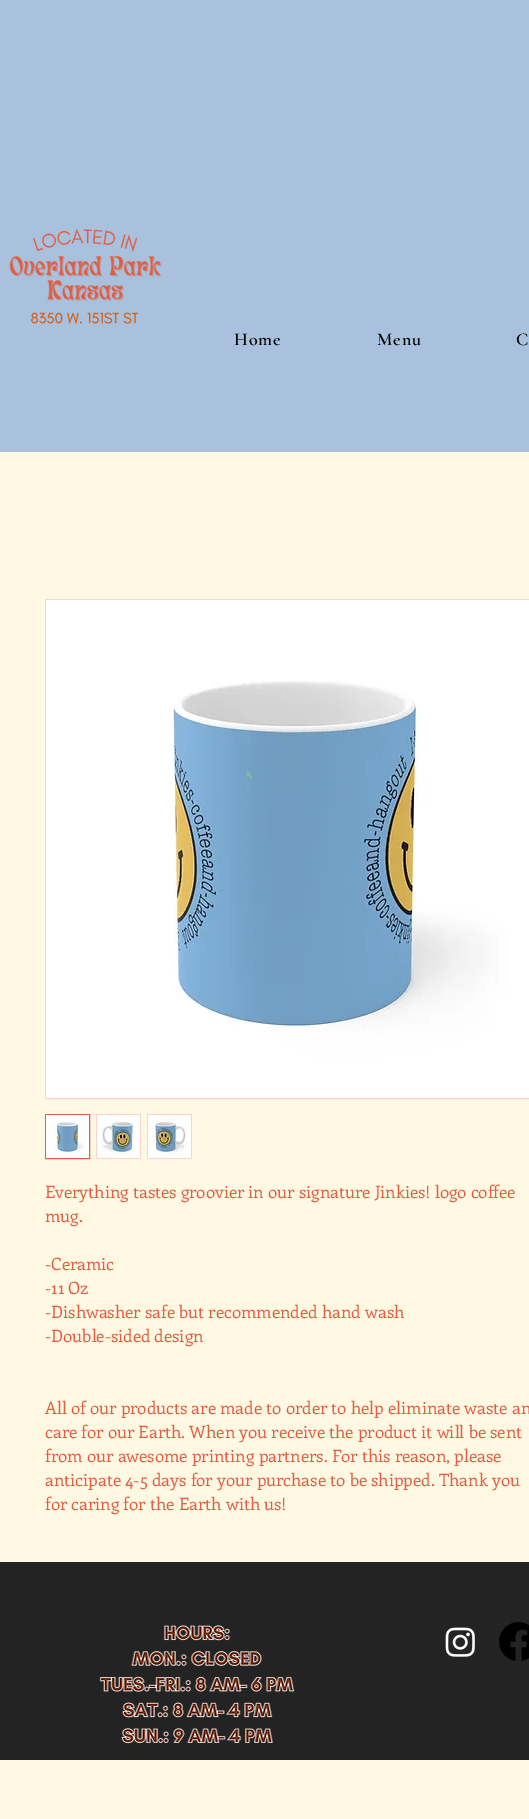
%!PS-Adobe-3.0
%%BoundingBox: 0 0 529 1819
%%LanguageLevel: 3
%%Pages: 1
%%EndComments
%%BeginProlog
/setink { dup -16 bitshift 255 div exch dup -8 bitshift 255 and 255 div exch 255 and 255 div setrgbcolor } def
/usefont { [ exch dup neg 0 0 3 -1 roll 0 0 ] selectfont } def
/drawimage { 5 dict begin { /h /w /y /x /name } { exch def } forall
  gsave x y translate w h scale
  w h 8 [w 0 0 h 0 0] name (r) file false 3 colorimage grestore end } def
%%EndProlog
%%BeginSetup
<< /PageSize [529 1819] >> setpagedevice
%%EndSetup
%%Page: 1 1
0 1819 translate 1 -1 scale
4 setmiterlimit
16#FFF8E3 setink
0 0 529 1819 rectfill
16#A9C1DD setink
0 0 529 452 rectfill
(img1.raw) 9 229 153 72 drawimage
(img2.raw) 31 312 108 12 drawimage
/CormorantGaramond-SemiBold 18 usefont
16#000000 setink
234 345 moveto 1 0 (Home) ashow
377 345 moveto 1 0 (Menu) ashow
516 345 moveto 1 0 (C) ashow
16#F7D4CD setink
45.5 599.5 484 499 rectstroke
(img3.raw) 46 600 483 498 drawimage
16#DF6044 setink
45.5 1114.5 44 44 rectstroke
(img4.raw) 46 1115 43 43 drawimage
16#F7D4CD setink
96 1114 45 45 rectfill
(img5.raw) 97 1115 43 43 drawimage
147 1114 45 45 rectfill
(img6.raw) 148 1115 43 43 drawimage
/Enriqueta-Regular 17 usefont
16#DF6044 setink
[
    [(Everything tastes groovier in our signature Jinkies! logo coffee) 45 1198]
    [(mug.) 45 1222]
    [(-Ceramic) 45 1270]
    [(-11 Oz) 45 1294]
    [(-Dishwasher safe but recommended hand wash) 45 1318]
    [(-Double-sided design) 45 1342]
    [(All of our products are made to order to help eliminate waste an) 45 1414]
    [(care for our Earth. When you receive the product it will be sent) 45 1438]
    [(from our awesome printing partners. For this reason, please) 45 1462]
    [(anticipate 4-5 days for your purchase to be shipped. Thank you) 45 1486]
    [(for caring for the Earth with us!) 45 1510]
] { aload pop moveto show } forall
16#242323 setink
0 1562 529 198 rectfill
(img7.raw) 99 1625 196 119 drawimage
(img8.raw) 445 1627 30 30 drawimage
(img9.raw) 499 1622 30 39 drawimage
showpage
%%EOF
